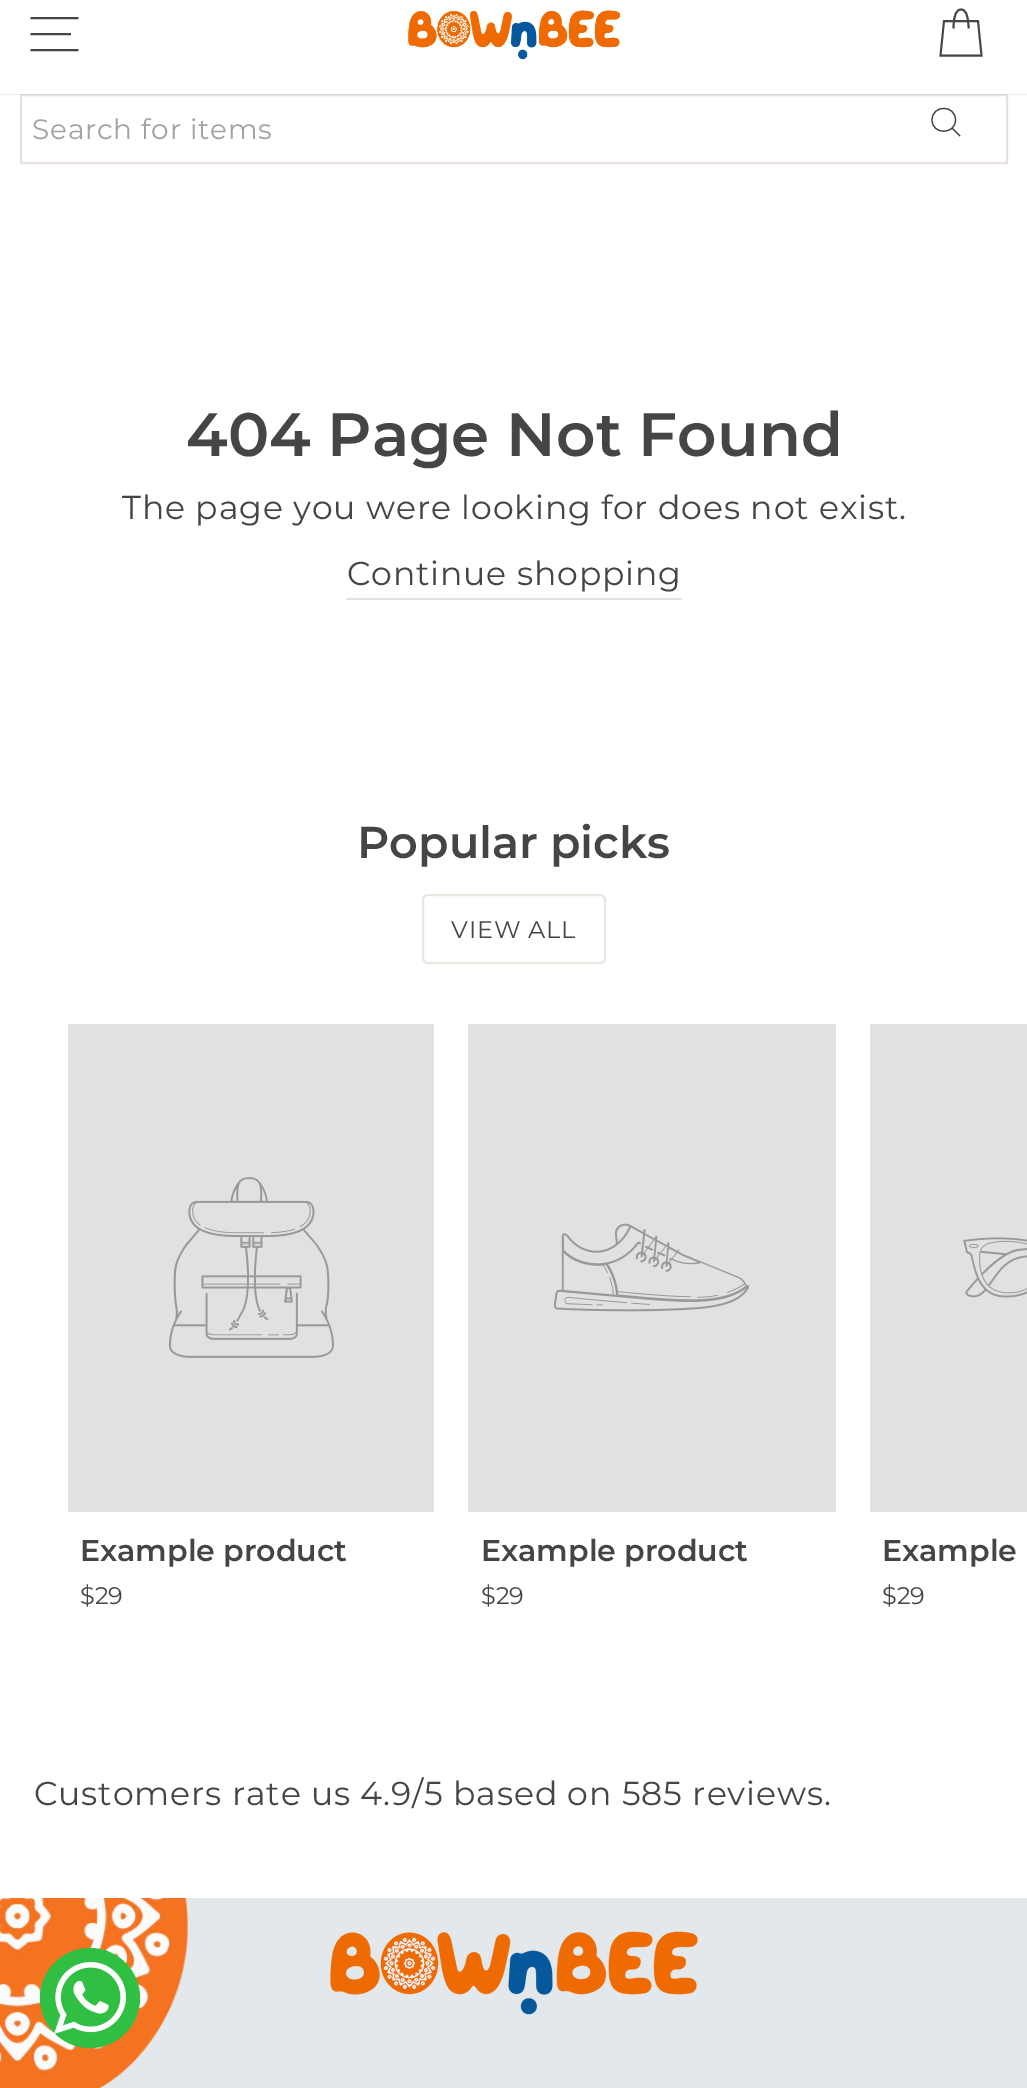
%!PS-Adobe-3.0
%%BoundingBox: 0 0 1027 2088
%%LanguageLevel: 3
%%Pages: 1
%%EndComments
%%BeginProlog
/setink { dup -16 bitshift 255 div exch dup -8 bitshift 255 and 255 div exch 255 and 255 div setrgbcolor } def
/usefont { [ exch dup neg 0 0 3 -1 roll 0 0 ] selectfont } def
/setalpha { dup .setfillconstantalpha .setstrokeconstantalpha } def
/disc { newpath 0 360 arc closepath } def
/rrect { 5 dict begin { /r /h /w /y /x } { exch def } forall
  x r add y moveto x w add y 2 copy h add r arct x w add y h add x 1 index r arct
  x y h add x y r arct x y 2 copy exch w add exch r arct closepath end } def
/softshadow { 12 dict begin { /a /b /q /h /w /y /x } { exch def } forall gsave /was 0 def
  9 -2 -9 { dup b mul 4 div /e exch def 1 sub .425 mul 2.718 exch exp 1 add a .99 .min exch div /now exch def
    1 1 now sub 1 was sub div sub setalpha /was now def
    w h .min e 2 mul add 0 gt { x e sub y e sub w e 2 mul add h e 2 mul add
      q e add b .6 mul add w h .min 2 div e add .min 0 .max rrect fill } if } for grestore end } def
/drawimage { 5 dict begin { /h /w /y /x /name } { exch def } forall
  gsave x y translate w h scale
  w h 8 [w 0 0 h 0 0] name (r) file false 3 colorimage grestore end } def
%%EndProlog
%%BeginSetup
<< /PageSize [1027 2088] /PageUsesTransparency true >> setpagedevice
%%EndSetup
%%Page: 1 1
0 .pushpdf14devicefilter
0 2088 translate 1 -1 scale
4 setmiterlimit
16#FFFFFF setink
0 0 1027 2088 rectfill
16#E8E0E0 setink
2 setlinewidth
21 95 986 68 rectstroke
gsave
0 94 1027 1 rectclip
16#000000 setink
0 -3 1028 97 0 1 0.2 softshadow
grestore
16#454545 setink
1.9 setlinewidth
30.5 18 moveto 78.5 18 lineto 30.5 34 moveto 71 34 lineto 30.5 50 moveto 78.5 50 lineto stroke
(img1.raw) 408 10 212 50 drawimage
953.5 28.5 moveto 953.5 13.5 957 9.5 961 9.5 curveto 965 9.5 968.5 13.5 968.5 28.5 curveto 944 21 moveto 978 21 lineto 981.5 55.5 lineto 940.5 55.5 lineto closepath stroke
/Montserrat-Regular 28 usefont
16#A2A2A2 setink
32 139 moveto 0.75 0 (Search for items) ashow
16#454545 setink
1.2 setlinewidth
955.5 120 moveto 955.5 135 932 135 932 120 curveto 932 104.5 955.5 104.5 955.5 120 curveto closepath 960 136 moveto 952 128 lineto stroke
/Montserrat-SemiBold 61.25 usefont
186 456 moveto (404 Page Not Found) show
/Montserrat-Regular 33.1 usefont
122 519 moveto 0.85 0 (The page you were looking for does not exist.) ashow
16#E3E3E3 setink
346 598 336 2 rectfill
16#454545 setink
347 585 moveto 0.85 0 (Continue shopping) ashow
/Montserrat-SemiBold 44.5 usefont
357 858 moveto (Popular picks) show
16#E8E8E1 setink
2 setlinewidth
423 895 182 68 5 rrect stroke
/Montserrat-Regular 24 usefont
16#454545 setink
451 938 moveto 0.85 0 (VIEW ALL) ashow
16#E1E1E1 setink
68 1024 366 488 rectfill
(img2.raw) 168 1177 166 181 drawimage
/Montserrat-SemiBold 30 usefont
16#454545 setink
80 1561 moveto (Example product) show
/Montserrat-Regular 24 usefont
80 1604 moveto ($29) show
16#E1E1E1 setink
468 1024 368 488 rectfill
(img3.raw) 553 1223 196 89 drawimage
/Montserrat-SemiBold 30 usefont
16#454545 setink
481 1561 moveto (Example product) show
/Montserrat-Regular 24 usefont
481 1604 moveto ($29) show
16#E1E1E1 setink
870 1024 157 488 rectfill
(img4.raw) 963 1237 64 61 drawimage
/Montserrat-SemiBold 30 usefont
16#454545 setink
882 1561 moveto (Example) show
/Montserrat-Regular 24 usefont
882 1604 moveto ($29) show
/Montserrat-Regular 33.1 usefont
34 1805 moveto 0.85 0 (Customers rate us 4.9/5 based on 585 reviews.) ashow
16#E2E8EB setink
100 1898 927 190 rectfill
(img5.raw) 0 1898 188 190 drawimage
(img6.raw) 330 1931 368 84 drawimage
16#30BF42 setink
90 1998 50 disc fill
(img7.raw) 54 1962 72 72 drawimage
.poppdf14devicefilter showpage
%%EOF
